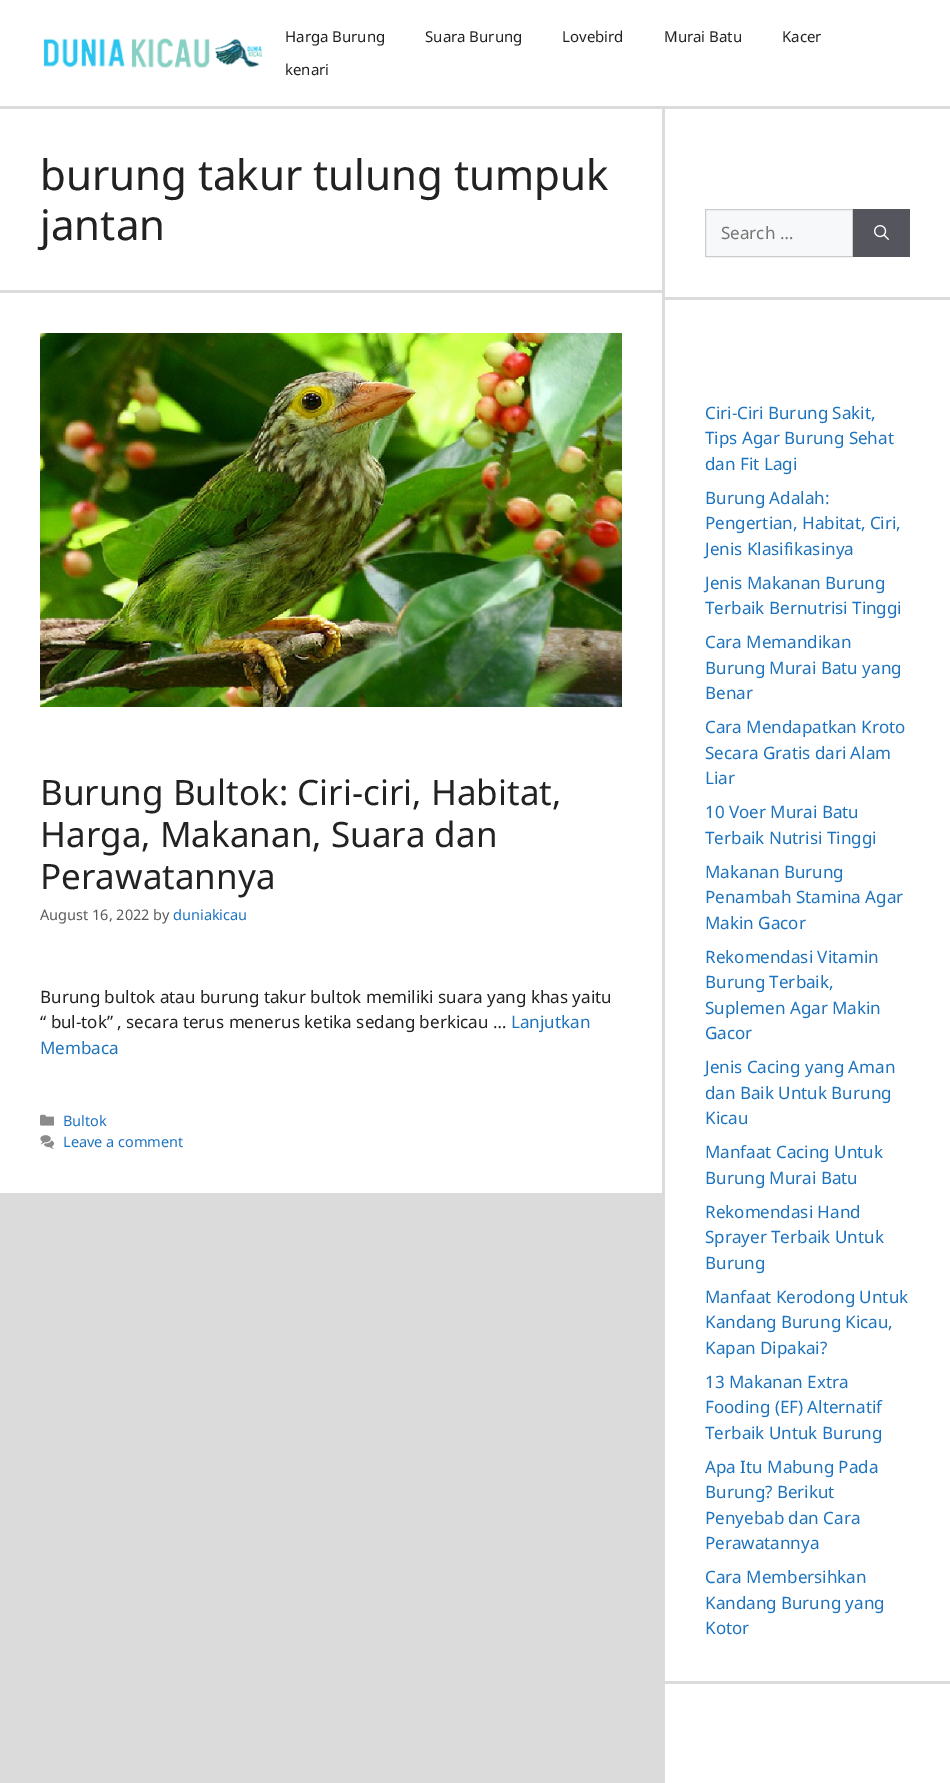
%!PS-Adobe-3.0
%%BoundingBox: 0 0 950 1783
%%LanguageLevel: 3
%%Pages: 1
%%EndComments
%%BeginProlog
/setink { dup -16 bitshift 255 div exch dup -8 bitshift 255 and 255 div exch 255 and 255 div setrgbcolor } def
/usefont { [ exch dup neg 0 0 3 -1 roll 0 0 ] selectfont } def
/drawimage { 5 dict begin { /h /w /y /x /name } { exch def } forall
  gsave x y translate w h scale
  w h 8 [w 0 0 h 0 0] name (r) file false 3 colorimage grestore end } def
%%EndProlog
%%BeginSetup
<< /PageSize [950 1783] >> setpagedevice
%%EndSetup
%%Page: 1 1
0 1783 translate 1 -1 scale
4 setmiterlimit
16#DBDBDB setink
0 0 950 1783 rectfill
16#FFFFFF setink
0 0 950 106 rectfill
(img1.raw) 43 38 220 30 drawimage
/NotoSans-Regular 15 usefont
16#222222 setink
[
    [(Harga Burung) 285 42]
    [(Suara Burung) 425 42]
    [(Lovebird) 562 42]
    [(Murai Batu) 664 42]
    [(Kacer) 782 42]
    [(kenari) 285 75]
] { aload pop moveto show } forall
16#FFFFFF setink
0 109 662 181 rectfill
/NotoSans-Regular 42 usefont
16#222222 setink
40 190 moveto (burung takur tulung tumpuk) show
40 240 moveto (jantan) show
16#FFFFFF setink
0 293 662 900 rectfill
(img2.raw) 40 333 582 374 drawimage
/NotoSans-Regular 35 usefont
16#222222 setink
[
    [(Burung Bultok: Ciri-ciri, Habitat,) 40 805]
    [(Harga, Makanan, Suara dan) 40 847]
    [(Perawatannya) 40 889]
] { aload pop moveto show } forall
/NotoSans-Regular 14.5 usefont
16#595959 setink
40 920 moveto (August 16, 2022 by) show
16#1E73BE setink
173 920 moveto (duniakicau) show
/NotoSans-Regular 17 usefont
16#222222 setink
40 1003 moveto (Burung bultok atau burung takur bultok memiliki suara yang khas yaitu) show
40 1028 moveto (“ bul-tok” , secara terus menerus ketika sedang berkicau …) show
16#1E73BE setink
511 1028 moveto (Lanjutkan) show
40 1054 moveto (Membaca) show
(img3.raw) 40 1114 14 12 drawimage
/NotoSans-Regular 14.5 usefont
63 1126 moveto (Bultok) show
(img4.raw) 40 1135 14 14 drawimage
63 1147 moveto (Leave a comment) show
16#FFFFFF setink
665 109 285 188 rectfill
16#F7F8F9 setink
705.5 209.5 moveto 852.5 209.5 lineto 852.5 256.5 lineto 705.5 256.5 lineto closepath gsave fill grestore
16#CCCCCC setink
stroke
/NotoSans-Regular 17 usefont
16#757575 setink
721 239 moveto (Search …) show
16#55555E setink
853 209 57 48 rectfill
(img5.raw) 874 225 15 15 drawimage
16#FFFFFF setink
665 300 285 1381 rectfill
16#1E73BE setink
[
    [(Ciri-Ciri Burung Sakit,) 705 419]
    [(Tips Agar Burung Sehat) 705 444]
    [(dan Fit Lagi) 705 470]
    [(Burung Adalah:) 705 504]
    [(Pengertian, Habitat, Ciri,) 705 529]
    [(Jenis Klasifikasinya) 705 555]
    [(Jenis Makanan Burung) 705 589]
    [(Terbaik Bernutrisi Tinggi) 705 614]
    [(Cara Memandikan) 705 648]
    [(Burung Murai Batu yang) 705 674]
    [(Benar) 705 699]
    [(Cara Mendapatkan Kroto) 705 733]
    [(Secara Gratis dari Alam) 705 759]
    [(Liar) 705 784]
    [(10 Voer Murai Batu) 705 818]
    [(Terbaik Nutrisi Tinggi) 705 844]
    [(Makanan Burung) 705 878]
    [(Penambah Stamina Agar) 705 903]
    [(Makin Gacor) 705 929]
    [(Rekomendasi Vitamin) 705 963]
    [(Burung Terbaik,) 705 988]
    [(Suplemen Agar Makin) 705 1014]
    [(Gacor) 705 1039]
    [(Jenis Cacing yang Aman) 705 1073]
    [(dan Baik Untuk Burung) 705 1099]
    [(Kicau) 705 1124]
    [(Manfaat Cacing Untuk) 705 1158]
    [(Burung Murai Batu) 705 1184]
    [(Rekomendasi Hand) 705 1218]
    [(Sprayer Terbaik Untuk) 705 1243]
    [(Burung) 705 1269]
    [(Manfaat Kerodong Untuk) 705 1303]
    [(Kandang Burung Kicau,) 705 1328]
    [(Kapan Dipakai?) 705 1354]
    [(13 Makanan Extra) 705 1388]
    [(Fooding \(EF\) Alternatif) 705 1413]
    [(Terbaik Untuk Burung) 705 1439]
    [(Apa Itu Mabung Pada) 705 1473]
    [(Burung? Berikut) 705 1498]
    [(Penyebab dan Cara) 705 1524]
    [(Perawatannya) 705 1549]
    [(Cara Membersihkan) 705 1583]
    [(Kandang Burung yang) 705 1609]
    [(Kotor) 705 1634]
] { aload pop moveto show } forall
16#FFFFFF setink
665 1684 285 99 rectfill
showpage
%%EOF
